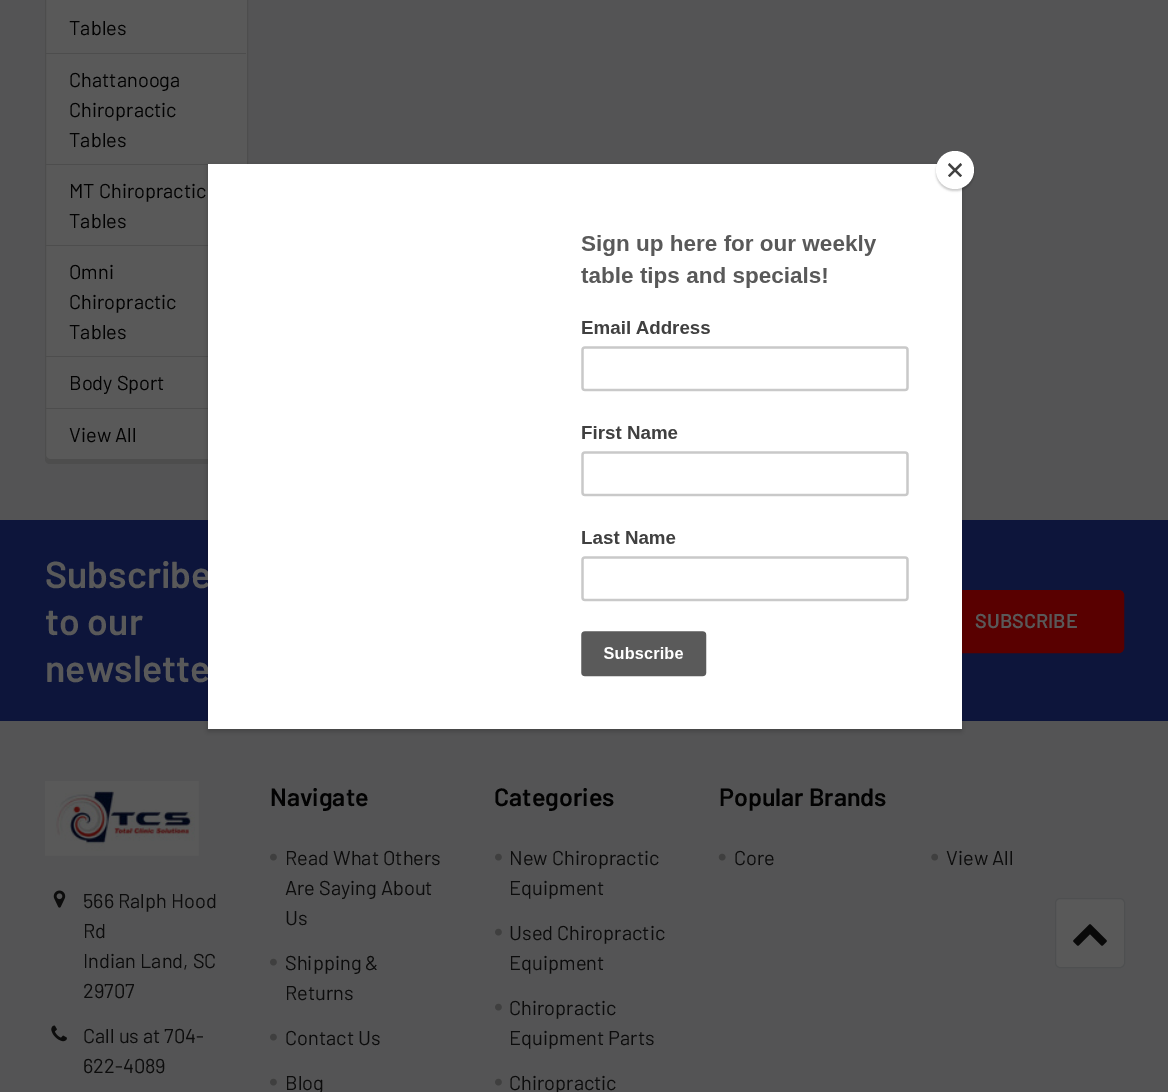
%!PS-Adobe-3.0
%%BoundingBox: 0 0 1168 1092
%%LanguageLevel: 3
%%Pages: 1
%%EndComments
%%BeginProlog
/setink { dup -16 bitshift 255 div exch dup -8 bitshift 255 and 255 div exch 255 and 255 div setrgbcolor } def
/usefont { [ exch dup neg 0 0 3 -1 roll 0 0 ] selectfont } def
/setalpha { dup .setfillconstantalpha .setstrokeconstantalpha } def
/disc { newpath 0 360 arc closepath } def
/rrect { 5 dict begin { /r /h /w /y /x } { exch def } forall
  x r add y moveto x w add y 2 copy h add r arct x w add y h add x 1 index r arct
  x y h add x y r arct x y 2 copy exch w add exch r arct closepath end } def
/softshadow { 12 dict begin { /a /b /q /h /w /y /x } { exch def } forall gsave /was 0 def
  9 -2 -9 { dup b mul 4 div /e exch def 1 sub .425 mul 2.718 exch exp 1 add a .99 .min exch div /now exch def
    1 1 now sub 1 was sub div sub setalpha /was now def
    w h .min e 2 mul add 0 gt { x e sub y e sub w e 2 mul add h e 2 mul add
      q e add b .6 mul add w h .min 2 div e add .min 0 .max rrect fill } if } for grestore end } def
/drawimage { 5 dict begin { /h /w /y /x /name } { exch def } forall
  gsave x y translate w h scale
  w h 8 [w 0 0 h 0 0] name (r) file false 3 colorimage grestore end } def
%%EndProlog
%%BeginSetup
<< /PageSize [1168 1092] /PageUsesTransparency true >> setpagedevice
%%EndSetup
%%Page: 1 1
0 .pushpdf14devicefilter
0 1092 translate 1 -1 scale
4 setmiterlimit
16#545455 setink
0 0 1168 1092 rectfill
16#4D4D4D setink
45 455 moveto 45 459 lineto 45 462 47 464 50 464 curveto 243 464 lineto 246 464 248 462 248 459 curveto 248 -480 lineto 248 -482 lineto 248 455 lineto 248 458 245 460 242 460 curveto 50 460 lineto 47 460 45 458 45 455 curveto closepath fill
16#595959 setink
45.5 -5.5 202 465 4.5 rrect gsave fill grestore
16#4D4D4D setink
stroke
/Barlow-Regular 20 usefont
16#020202 setink
69 35 moveto (Tables) show
16#4D4D4D setink
46 53 200 1 rectfill
16#020202 setink
[
    [(Chattanooga) 69 87]
    [(Chiropractic) 69 117]
    [(Tables) 69 147]
] { aload pop moveto show } forall
16#4D4D4D setink
46 164 162 1 rectfill
16#020202 setink
69 198 moveto (MT Chiropractic) show
69 228 moveto (Tables) show
16#4D4D4D setink
46 245 162 1 rectfill
16#020202 setink
[
    [(Omni) 69 279]
    [(Chiropractic) 69 309]
    [(Tables) 69 339]
] { aload pop moveto show } forall
16#4D4D4D setink
46 356 162 1 rectfill
16#020202 setink
69 390 moveto (Body Sport) show
16#4D4D4D setink
46 408 162 1 rectfill
16#020202 setink
69 442 moveto (View All) show
16#0D153B setink
0 520 1168 201 rectfill
16#590000 setink
929.5 590.5 moveto 1119 590.5 lineto 1121.5 590.5 1123.5 592.5 1123.5 595 curveto 1123.5 648 lineto 1123.5 650.5 1121.5 652.5 1119 652.5 curveto 929.5 652.5 lineto closepath gsave fill grestore
stroke
16#000000 setink
208 166 753 565 0 2.5 0.2 softshadow
/Barlow-SemiBold 37.5 usefont
16#595959 setink
45 588 moveto (Subscribe) show
45 682 moveto (newslette) show
(img1.raw) 208 164 754 565 drawimage
16#000000 setink
936 154 38 37 18.5 1 0.2 softshadow
16#FFFFFF setink
955 170 19 disc fill
16#414141 setink
960.5 163 moveto 962 165 lineto 949.5 177 lineto 948 175.5 lineto closepath fill
948 165 moveto 949.5 163 lineto 962 175.5 lineto 960.5 177 lineto closepath fill
16#595959 setink
45 635 moveto (to our) show
/Barlow-SemiBold 20 usefont
975 628 moveto (SUBSCRIBE) show
/Barlow-SemiBold 25 usefont
16#020202 setink
270 806 moveto (Navigate) show
(img2.raw) 270 853 7 8 drawimage
/Barlow-Regular 20 usefont
16#0C0C0C setink
[
    [(Read What Others) 285 865]
    [(Are Saying About) 285 895]
    [(Us) 285 925]
] { aload pop moveto show } forall
(img2.raw) 270 958 7 8 drawimage
285 970 moveto (Shipping &) show
285 1000 moveto (Returns) show
(img2.raw) 270 1033 7 8 drawimage
285 1045 moveto (Contact Us) show
(img2.raw) 270 1078 7 8 drawimage
285 1090 moveto (Blog) show
/Barlow-SemiBold 25 usefont
16#020202 setink
494 806 moveto (Categories) show
(img2.raw) 495 853 7 8 drawimage
/Barlow-Regular 20 usefont
16#0C0C0C setink
509 865 moveto (New Chiropractic) show
509 895 moveto (Equipment) show
(img2.raw) 495 928 7 8 drawimage
509 940 moveto (Used Chiropractic) show
509 970 moveto (Equipment) show
(img2.raw) 495 1003 7 8 drawimage
509 1015 moveto (Chiropractic) show
509 1045 moveto (Equipment Parts) show
(img2.raw) 495 1078 7 8 drawimage
509 1090 moveto (Chiropractic) show
/Barlow-SemiBold 25 usefont
16#020202 setink
719 806 moveto (Popular Brands) show
(img3.raw) 718 853 8 8 drawimage
/Barlow-Regular 20 usefont
16#0C0C0C setink
734 865 moveto (Core) show
(img4.raw) 931 853 7 8 drawimage
946 865 moveto (View All) show
(img5.raw) 45 781 154 75 drawimage
(img6.raw) 53 890 13 18 drawimage
[
    [(566 Ralph Hood) 83 908]
    [(Rd) 83 938]
    [(Indian Land, SC) 83 968]
    [(29707) 83 998]
] { aload pop moveto show } forall
(img7.raw) 51 1025 16 17 drawimage
83 1043 moveto (Call us at 704-) show
83 1073 moveto (622-4089) show
16#595959 setink
1055.5 898.5 69 69 4.5 rrect gsave fill grestore
16#4E4F50 setink
stroke
(img8.raw) 1073 924 34 22 drawimage
.poppdf14devicefilter showpage
%%EOF
